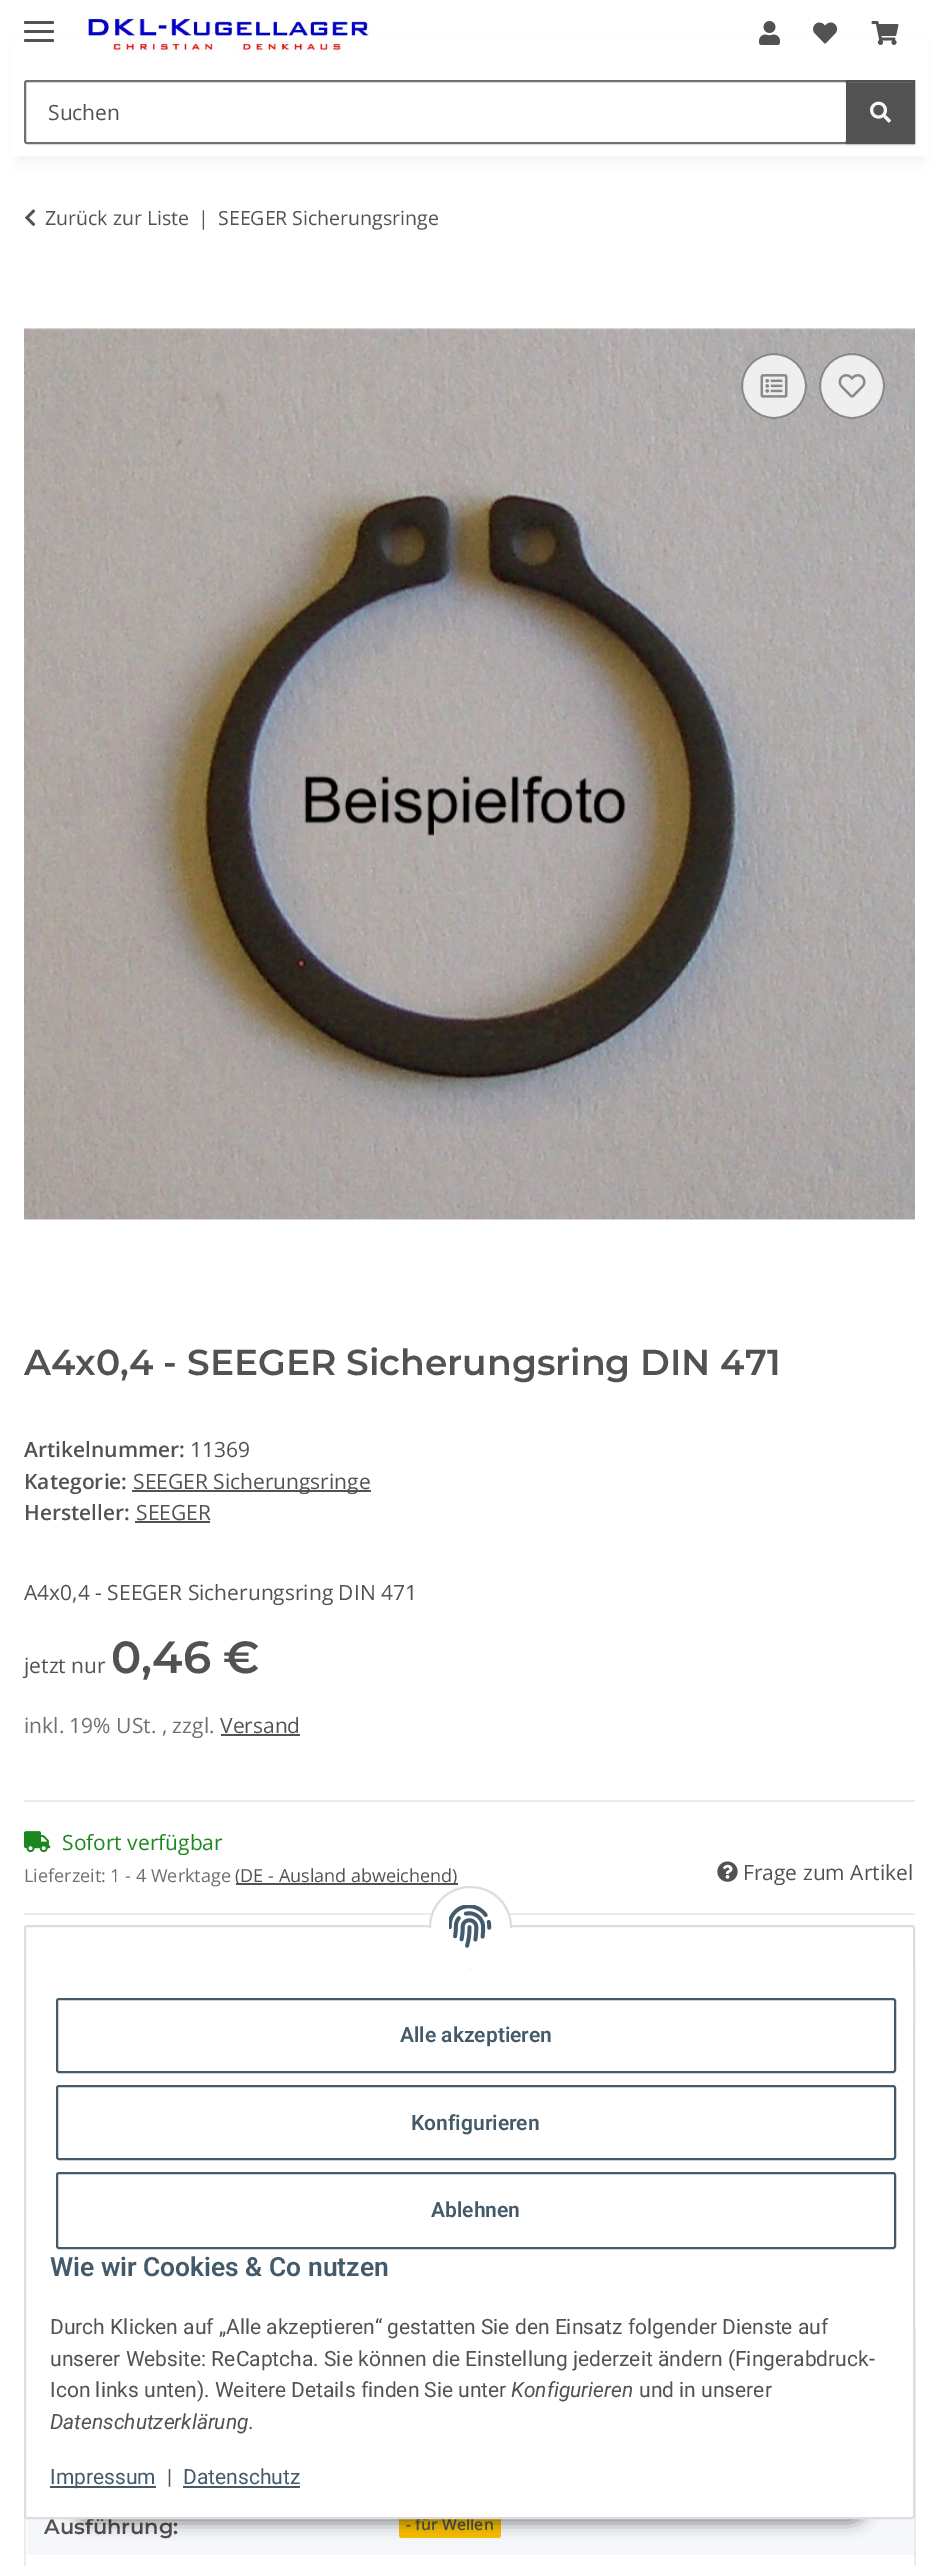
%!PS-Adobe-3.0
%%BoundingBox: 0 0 939 2566
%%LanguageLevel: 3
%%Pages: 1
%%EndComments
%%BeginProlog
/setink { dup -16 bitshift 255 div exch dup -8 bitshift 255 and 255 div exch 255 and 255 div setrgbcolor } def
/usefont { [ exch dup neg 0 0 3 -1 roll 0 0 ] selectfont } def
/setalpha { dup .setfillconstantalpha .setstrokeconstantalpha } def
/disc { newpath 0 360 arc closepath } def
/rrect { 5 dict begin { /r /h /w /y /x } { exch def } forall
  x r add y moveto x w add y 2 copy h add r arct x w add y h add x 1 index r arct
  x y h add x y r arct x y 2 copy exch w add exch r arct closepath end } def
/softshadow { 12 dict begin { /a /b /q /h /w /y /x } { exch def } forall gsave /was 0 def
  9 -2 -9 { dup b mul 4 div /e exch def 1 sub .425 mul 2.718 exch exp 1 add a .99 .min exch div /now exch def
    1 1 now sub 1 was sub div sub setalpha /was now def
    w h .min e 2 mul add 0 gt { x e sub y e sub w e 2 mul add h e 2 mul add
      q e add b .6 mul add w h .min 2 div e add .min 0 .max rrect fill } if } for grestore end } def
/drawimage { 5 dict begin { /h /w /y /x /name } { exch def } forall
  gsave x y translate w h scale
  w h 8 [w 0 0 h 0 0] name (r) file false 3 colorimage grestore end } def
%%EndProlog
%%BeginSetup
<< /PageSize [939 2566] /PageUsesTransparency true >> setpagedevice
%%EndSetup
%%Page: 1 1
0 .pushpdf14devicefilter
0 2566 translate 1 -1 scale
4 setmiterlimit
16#FFFFFF setink
0 0 939 2566 rectfill
16#000000 setink
18 42 903 120 0 7 0.06 softshadow
16#FFFFFF setink
11 35 917 121 rectfill
16#525252 setink
24 30 30 3 1.5 rrect fill
24 21 30 3 1.5 rrect fill
24 39 30 3 1.5 rrect fill
(img1.raw) 87 16 282 38 drawimage
(img2.raw) 759 21 21 24 drawimage
(img3.raw) 813 22 24 22 drawimage
(img4.raw) 871 21 28 24 drawimage
16#707070 setink
2 setlinewidth
25 81 822 62 2 rrect stroke
/OpenSans-Regular 21 usefont
16#525252 setink
48 120 moveto (Suchen) show
16#000000 setink
846 81 69 65 0 1 0.07 softshadow
16#525252 setink
848 83 65 59 rectfill
16#6C6C6C setink
848 82 66 1 rectfill
16#525252 setink
847 81 67 62 rectstroke
(img5.raw) 870 101 21 22 drawimage
(img6.raw) 25 209 11 17 drawimage
/OpenSans-Regular 19.5 usefont
[
    [(Zurück zur Liste) 45 225]
    [(|) 198 225]
    [(SEEGER Sicherungsringe) 218 225]
] { aload pop moveto show } forall
(img7.raw) 24 328 891 892 drawimage
0.8 setalpha
16#FFFFFF setink
774 386 33 disc fill
16#707070 setink
774 386 32 disc stroke
1 setalpha
(img8.raw) 760 374 28 24 drawimage
0.8 setalpha
16#FFFFFF setink
852 386 33 disc fill
16#707070 setink
852 386 32 disc stroke
1 setalpha
(img9.raw) 838 374 28 24 drawimage
/Montserrat-SemiBold 36 usefont
16#525252 setink
24 1375 moveto (A4x0,4 - SEEGER Sicherungsring DIN 471) show
/OpenSans-SemiBold 21 usefont
24 1457 moveto (Artikelnummer:) show
/OpenSans-Regular 21 usefont
190 1457 moveto (11369) show
/OpenSans-SemiBold 21 usefont
24 1489 moveto (Kategorie:) show
132 1490 239 2 rectfill
/OpenSans-Regular 21 usefont
133 1489 moveto (SEEGER Sicherungsringe) show
/OpenSans-SemiBold 21 usefont
24 1520 moveto (Hersteller:) show
/OpenSans-Regular 21 usefont
136 1520 moveto (SEEGER) show
135 1521 75 2 rectfill
24 1600 moveto (A4x0,4 - SEEGER Sicherungsring DIN 471) show
24 1673 moveto (jetzt nur) show
/Montserrat-SemiBold 45 usefont
111 1673 moveto (0,46 €) show
/OpenSans-Regular 21 usefont
16#707070 setink
24 1733 moveto (inkl. 19% USt. , zzgl.) show
16#525252 setink
220 1733 moveto (Versand) show
[
    [221 1734 79 2 16#525252]
    [24 1800 891 2 16#EBEBEB]
    [24 1913 891 2 16#EBEBEB]
] { aload pop setink rectfill } forall
(img10.raw) 24 1831 27 22 drawimage
16#1C871E setink
62 1850 moveto (Sofort verfügbar) show
/OpenSans-Regular 18 usefont
16#707070 setink
24 1882 moveto (Lieferzeit: 1 - 4 Werktage) show
16#525252 setink
236 1883 222 2 rectfill
235 1882 moveto (\(DE - Ausland abweichend\)) show
(img11.raw) 717 1861 21 21 drawimage
/OpenSans-Regular 21 usefont
743 1880 moveto (Frage zum Artikel) show
16#000000 setink
494 1964 421 64 3 1 0.07 softshadow
[
    [914 2499 2 67 16#EBEBEB]
    [915 2330 1 171 16#EBEBEB]
    [24 2516 2 50 16#EBEBEB]
    [27 2518 887 37 16#F5F7FA]
] { aload pop setink rectfill } forall
/Montserrat-SemiBold 21 usefont
16#525252 setink
44 2534 moveto (Ausführung:) show
16#F8BF00 setink
399 2511 102 27 3 rrect fill
/OpenSans-SemiBold 15.75 usefont
16#525252 setink
406 2530 moveto (- für Wellen) show
16#000000 setink
71 2475 798 48 24 7.5 0.45 softshadow
16#FFFFFF setink
25 1926 889 592 2 rrect gsave fill grestore
16#DDDDDD setink
stroke
16#FFFFFF setink
430 1887 81 80 40 rrect gsave fill grestore
16#DDDDDD setink
stroke
16#FFFFFF setink
429 1928 83 40 rectfill
(img12.raw) 449 1905 43 43 drawimage
16#435A6B setink
57 1999 838 73 2 rrect stroke
/Roboto-SemiBold 21 usefont
400 2042 moveto (Alle akzeptieren) show
57 2086 838 73 2 rrect stroke
411 2130 moveto (Konfigurieren) show
57 2173 838 75 2 rrect stroke
431 2217 moveto (Ablehnen) show
/Roboto-SemiBold 26.4 usefont
50 2276 moveto (Wie wir Cookies & Co nutzen) show
/Roboto-Regular 21 usefont
16#525252 setink
[
    [(Durch Klicken auf „Alle akzeptieren“ gestatten Sie den Einsatz folgender Dienste auf) 50 2334]
    [(unserer Website: ReCaptcha. Sie können die Einstellung jederzeit ändern \(Fingerabdruck-) 50 2366]
    [(Icon links unten\). Weitere Details finden Sie unter) 50 2397]
] { aload pop moveto show } forall
/Roboto-Italic 21 usefont
511 2397 moveto (Konfigurieren) show
/Roboto-Regular 21 usefont
639 2397 moveto (und in unserer) show
/Roboto-Italic 21 usefont
50 2429 moveto (Datenschutzerklärung) show
/Roboto-Regular 21 usefont
248 2429 moveto (.) show
16#435A6B setink
50 2486 106 2 rectfill
50 2484 moveto (Impressum) show
16#525252 setink
167 2484 moveto (|) show
16#435A6B setink
183 2484 moveto (Datenschutz) show
183 2486 117 2 rectfill
.poppdf14devicefilter showpage
%%EOF
